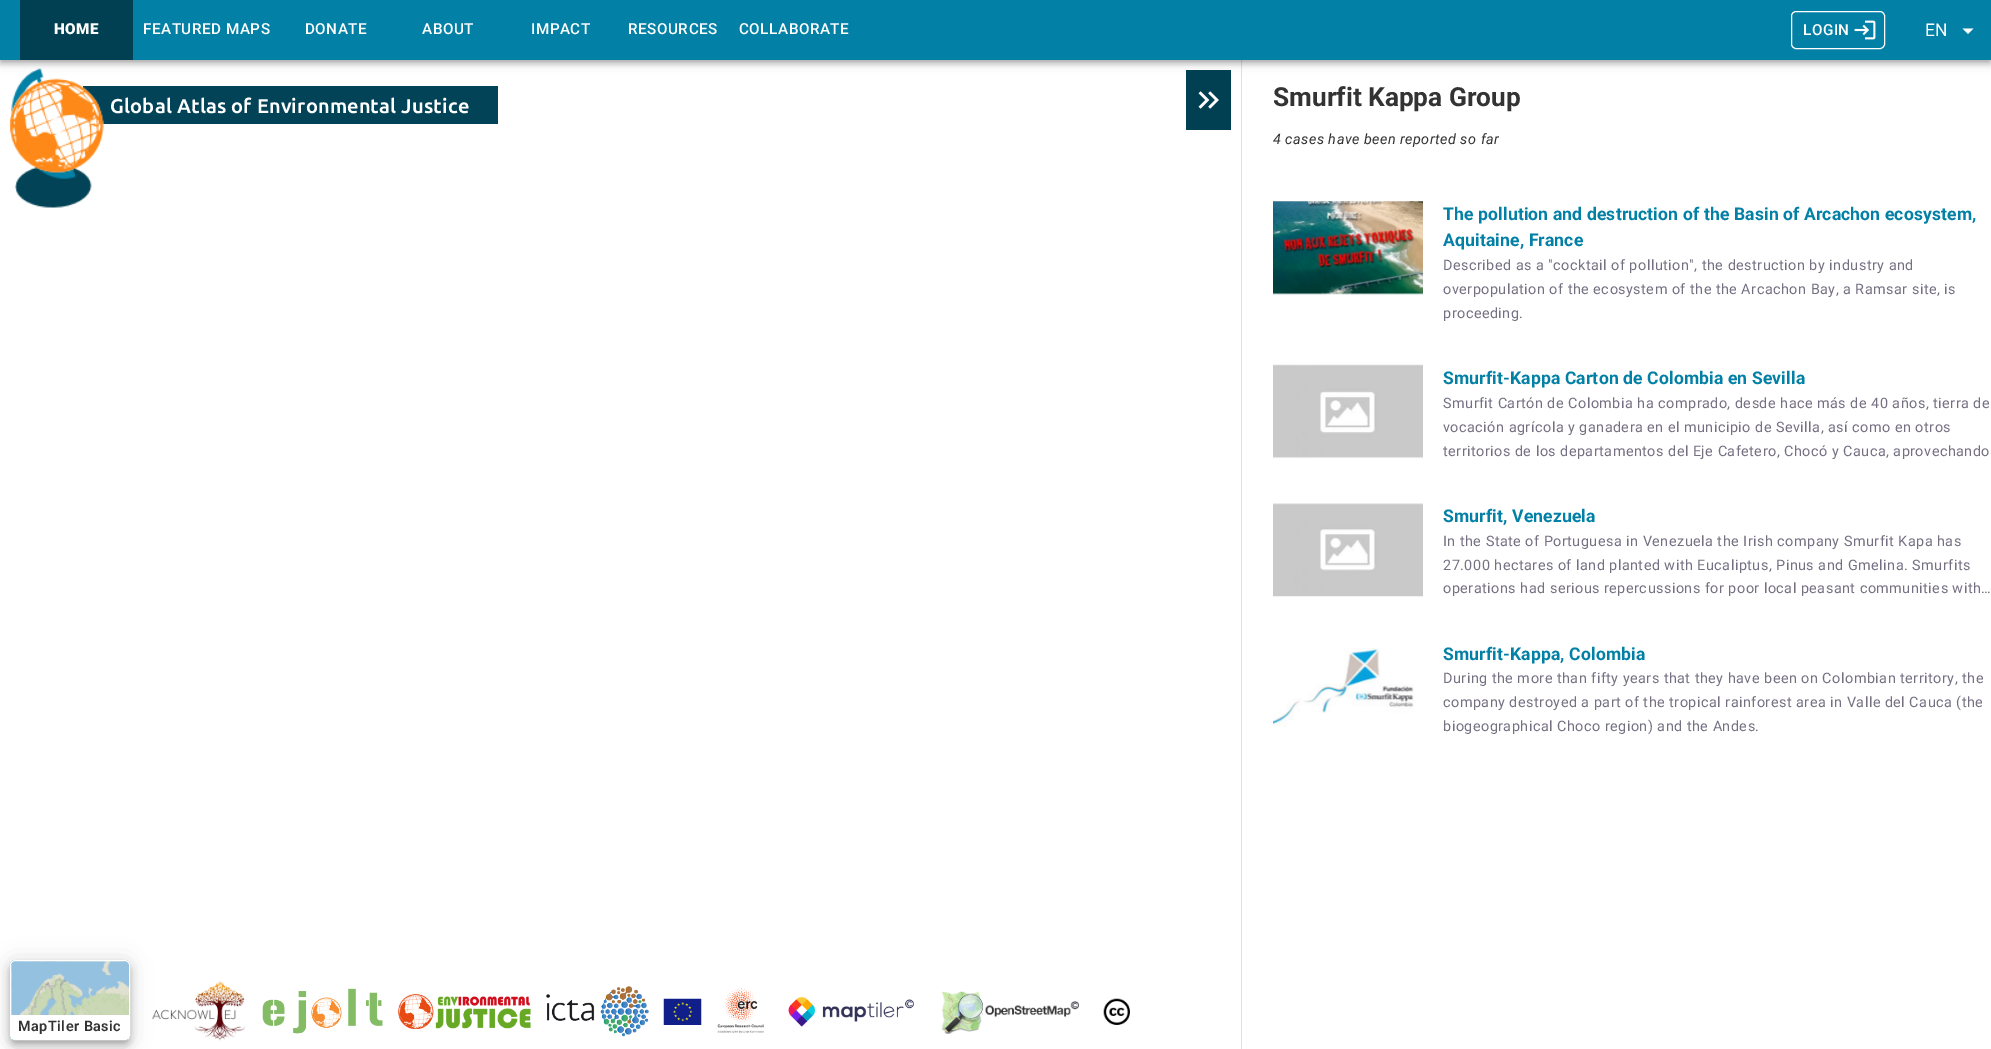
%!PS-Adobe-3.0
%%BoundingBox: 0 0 1991 1049
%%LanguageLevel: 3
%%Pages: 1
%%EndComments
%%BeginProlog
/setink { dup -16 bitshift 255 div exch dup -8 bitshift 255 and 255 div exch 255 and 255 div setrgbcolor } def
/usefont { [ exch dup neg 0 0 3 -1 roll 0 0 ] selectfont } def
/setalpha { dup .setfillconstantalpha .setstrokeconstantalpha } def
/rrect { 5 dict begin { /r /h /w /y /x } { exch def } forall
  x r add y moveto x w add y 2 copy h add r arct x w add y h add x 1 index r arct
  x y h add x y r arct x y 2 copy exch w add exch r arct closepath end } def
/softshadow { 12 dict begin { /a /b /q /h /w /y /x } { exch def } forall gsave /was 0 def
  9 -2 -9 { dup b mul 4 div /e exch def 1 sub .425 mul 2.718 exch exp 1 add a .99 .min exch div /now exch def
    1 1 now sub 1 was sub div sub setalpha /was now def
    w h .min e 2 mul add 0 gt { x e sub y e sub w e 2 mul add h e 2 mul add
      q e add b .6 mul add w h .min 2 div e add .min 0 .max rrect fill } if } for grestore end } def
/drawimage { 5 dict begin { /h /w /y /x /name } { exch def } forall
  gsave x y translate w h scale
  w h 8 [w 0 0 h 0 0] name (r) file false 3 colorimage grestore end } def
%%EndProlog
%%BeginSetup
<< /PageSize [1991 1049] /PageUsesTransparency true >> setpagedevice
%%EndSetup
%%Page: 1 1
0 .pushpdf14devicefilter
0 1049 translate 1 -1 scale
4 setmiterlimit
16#FFFFFF setink
0 0 1991 1049 rectfill
16#024357 setink
83 86 415 38 rectfill
(img2.raw) 10 68 94 140 drawimage
16#014052 setink
1186 70 45 60 rectfill
16#E0E0E0 setink
1241 60 1 989 rectfill
16#000000 setink
0 1 1991 60 0 6 0.12 softshadow
0 5 1991 60 0 3 0.14 softshadow
1 4 1989 57 0 2.5 0.2 softshadow
16#0380A5 setink
0 0 1991 60 rectfill
16#014052 setink
20 0 113 60 rectfill
/Roboto-Black 15.25 usefont
16#FFFFFF setink
54 34 moveto 0.5 0 (HOME) ashow
/Roboto-Medium 15.25 usefont
143 34 moveto 0.5 0 (FEATURED MAPS) ashow
305 34 moveto 0.5 0 (DONATE) ashow
422 34 moveto 0.5 0 (ABOUT) ashow
531 34 moveto 0.5 0 (IMPACT) ashow
628 34 moveto 0.5 0 (RESOURCES) ashow
739 34 moveto 0.5 0 (COLLABORATE) ashow
1791.5 11.5 93 37 4.5 rrect stroke
1803 35 moveto 0.5 0 (LOGIN) ashow
(img1.raw) 1854 20 22 20 drawimage
/Roboto-Regular 17.5 usefont
1925 36 moveto 0.15 0 (EN) ashow
1962.5 28.5 moveto 1968 34 lineto 1973.5 28.5 lineto closepath fill
/Ubuntu-Bold 20 usefont
110 113 moveto 0.15 0 (Global Atlas of Environmental Justice) ashow
(img3.raw) 1198 91 21 18 drawimage
/Roboto-Bold 26.25 usefont
16#333333 setink
1273 106 moveto (Smurfit Kappa Group) show
/Roboto-Italic 14.4 usefont
1273 144 moveto 0.48 0 (4 cases have been reported so far) ashow
(img4.raw) 1273 201 150 94 drawimage
/Roboto-Bold 17.5 usefont
16#0380A5 setink
1443 220 moveto 0.15 0 (The pollution and destruction of the Basin of Arcachon ecosystem,) ashow
1443 246 moveto 0.15 0 (Aquitaine, France) ashow
/Roboto-Regular 14.4 usefont
16#746F81 setink
1443 270 moveto 0.48 0 (Described as a "cocktail of pollution", the destruction by industry and) ashow
1443 294 moveto 0.48 0 (overpopulation of the ecosystem of the the Arcachon Bay, a Ramsar site, is) ashow
1443 318 moveto 0.48 0 (proceeding.) ashow
(img5.raw) 1273 364 150 95 drawimage
/Roboto-Bold 17.5 usefont
16#0380A5 setink
1443 384 moveto 0.15 0 (Smurfit-Kappa Carton de Colombia en Sevilla) ashow
/Roboto-Regular 14.4 usefont
16#746F81 setink
1443 408 moveto 0.48 0 (Smurfit Cartón de Colombia ha comprado, desde hace más de 40 años, tierra de) ashow
1443 432 moveto 0.48 0 (vocación agrícola y ganadera en el municipio de Sevilla, así como en otros) ashow
1443 456 moveto 0.48 0 (territorios de los departamentos del Eje Cafetero, Chocó y Cauca, aprovechando) ashow
(img6.raw) 1273 503 150 94 drawimage
/Roboto-Bold 17.5 usefont
16#0380A5 setink
1443 522 moveto 0.15 0 (Smurfit, Venezuela) ashow
/Roboto-Regular 14.4 usefont
16#746F81 setink
1443 546 moveto 0.48 0 (In the State of Portuguesa in Venezuela the Irish company Smurfit Kapa has) ashow
1443 570 moveto 0.48 0 (27.000 hectares of land planted with Eucaliptus, Pinus and Gmelina. Smurfits) ashow
1443 593 moveto 0.48 0 (operations had serious repercussions for poor local peasant communities with…) ashow
(img7.raw) 1273 648 141 79 drawimage
/Roboto-Bold 17.5 usefont
16#0380A5 setink
1443 660 moveto 0.15 0 (Smurfit-Kappa, Colombia) ashow
/Roboto-Regular 14.4 usefont
16#746F81 setink
1443 683 moveto 0.48 0 (During the more than fifty years that they have been on Colombian territory, the) ashow
1443 707 moveto 0.48 0 (company destroyed a part of the tropical rainforest area in Valle del Cauca \(the) ashow
1443 731 moveto 0.48 0 (biogeographical Choco region\) and the Andes.) ashow
(img9.raw) 152 981 93 60 drawimage
16#000000 setink
10 961 120 80 5 11 0.12 softshadow
10 968 120 80 5 6 0.14 softshadow
11 965 118 78 4 3 0.2 softshadow
(img8.raw) 10 960 120 80 drawimage
16#FFFFFF setink
10.5 960.5 119 79 4.5 rrect stroke
11 1015 118 24 rectfill
/Roboto-SemiBold 14.4 usefont
16#333333 setink
18 1031 moveto 0.48 0 (MapTiler Basic) ashow
(img10.raw) 262 988 121 46 drawimage
(img11.raw) 398 994 133 35 drawimage
(img12.raw) 546 986 103 51 drawimage
(img13.raw) 663 998 39 27 drawimage
(img14.raw) 717 988 47 45 drawimage
(img15.raw) 788 997 126 30 drawimage
(img16.raw) 941 991 138 43 drawimage
(img17.raw) 1103 998 27 27 drawimage
.poppdf14devicefilter showpage
%%EOF
